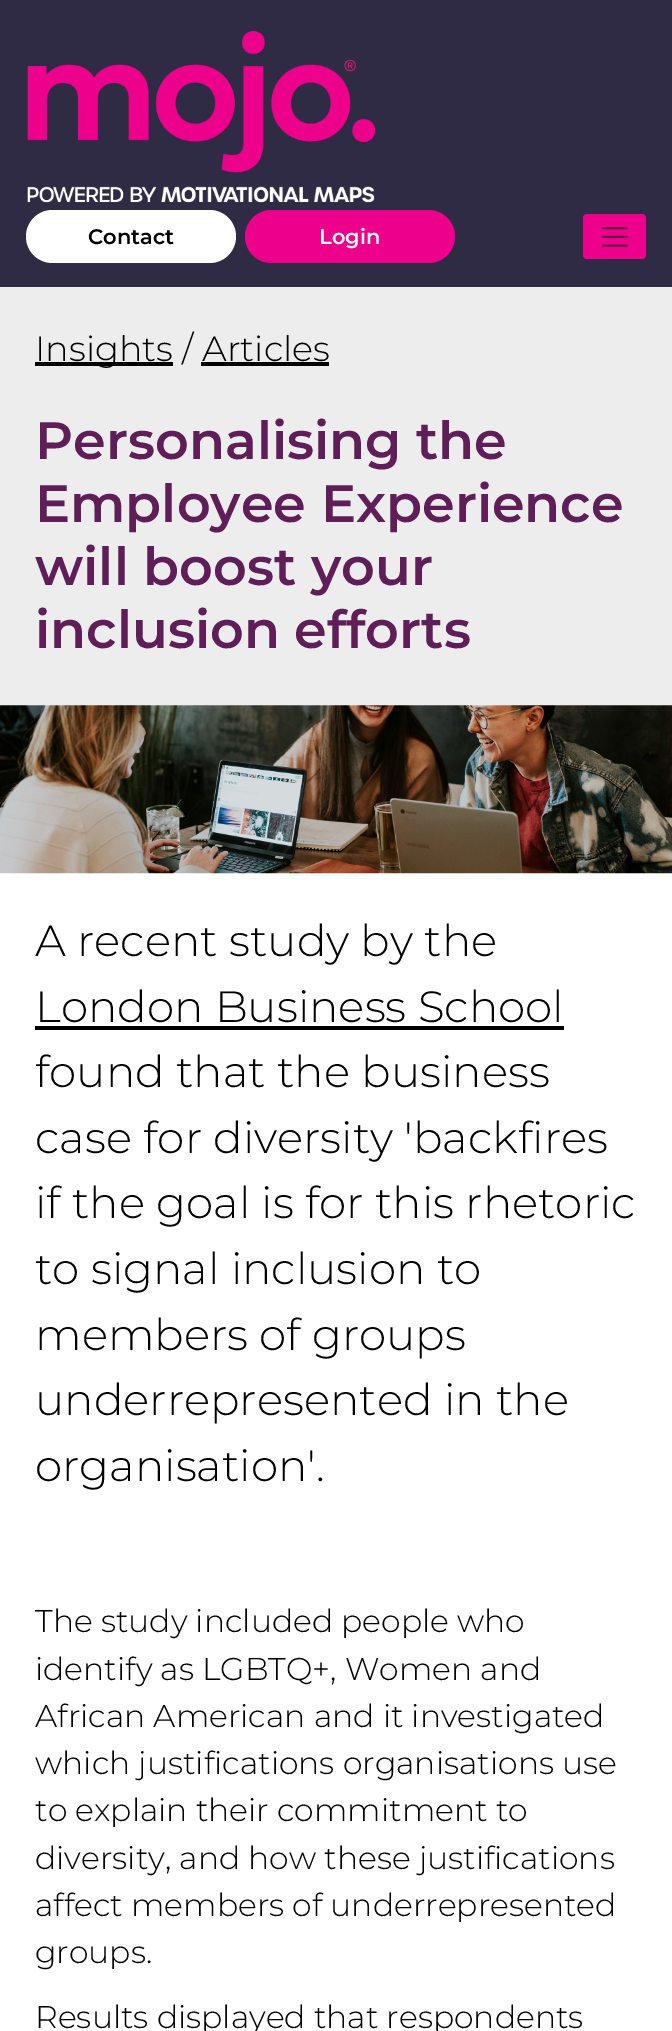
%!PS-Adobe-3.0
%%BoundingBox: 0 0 672 2031
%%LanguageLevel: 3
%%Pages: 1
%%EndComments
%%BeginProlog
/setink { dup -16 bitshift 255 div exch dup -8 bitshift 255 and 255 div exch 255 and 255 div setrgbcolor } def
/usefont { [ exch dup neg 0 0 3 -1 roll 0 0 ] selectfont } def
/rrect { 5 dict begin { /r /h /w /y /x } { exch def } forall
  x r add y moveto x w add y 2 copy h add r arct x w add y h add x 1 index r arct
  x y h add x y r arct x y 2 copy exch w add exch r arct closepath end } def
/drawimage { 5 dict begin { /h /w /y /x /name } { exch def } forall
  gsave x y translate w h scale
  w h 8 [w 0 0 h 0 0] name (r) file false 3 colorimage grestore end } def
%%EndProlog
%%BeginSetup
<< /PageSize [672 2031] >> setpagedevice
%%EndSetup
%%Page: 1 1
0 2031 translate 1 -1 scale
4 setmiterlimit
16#FFFFFF setink
0 0 672 2031 rectfill
16#2F2B45 setink
0 0 672 287 rectfill
(img1.raw) 27 31 349 172 drawimage
16#FFFFFF setink
26 210 210 53 26.5 rrect fill
/Montserrat-SemiBold 21 usefont
16#000000 setink
88 244 moveto (Contact) show
16#EC008C setink
245 210 210 53 26.5 rrect fill
16#FFFFFF setink
319 244 moveto (Login) show
16#EC008C setink
583 214 63 45 4 rrect fill
(img2.raw) 601 227 27 20 drawimage
16#EDEDED setink
0 287 672 418 rectfill
16#000000 setink
35 362 138 4 rectfill
/Montserrat-Light 35 usefont
35 361 moveto (Insights / Articles) show
201 362 128 4 rectfill
/Montserrat-SemiBold 52.5 usefont
16#601E58 setink
[
    [(Personalising the) 35 459]
    [(Employee Experience) 35 522]
    [(will boost your) 35 585]
    [(inclusion efforts) 35 648]
] { aload pop moveto show } forall
(img3.raw) 0 705 672 169 drawimage
/Montserrat-Light 43.75 usefont
16#000000 setink
35 956 moveto (A recent study by the) show
35 1022 moveto (London Business School) show
35 1026 529 4 rectfill
[
    [(found that the business) 35 1087]
    [(case for diversity 'backfires) 35 1153]
    [(if the goal is for this rhetoric) 35 1218]
    [(to signal inclusion to) 35 1284]
    [(members of groups) 35 1350]
    [(underrepresented in the) 35 1415]
    [(organisation'.) 35 1481]
] { aload pop moveto show } forall
/Montserrat-Light 31.5 usefont
[
    [(The study included people who) 35 1632]
    [(identify as LGBTQ+, Women and) 35 1680]
    [(African American and it investigated) 35 1727]
    [(which justifications organisations use) 35 1774]
    [(to explain their commitment to) 35 1821]
    [(diversity, and how these justifications) 35 1869]
    [(affect members of underrepresented) 35 1916]
    [(groups.) 35 1963]
    [(Results displayed that respondents) 35 2028]
] { aload pop moveto show } forall
showpage
%%EOF
